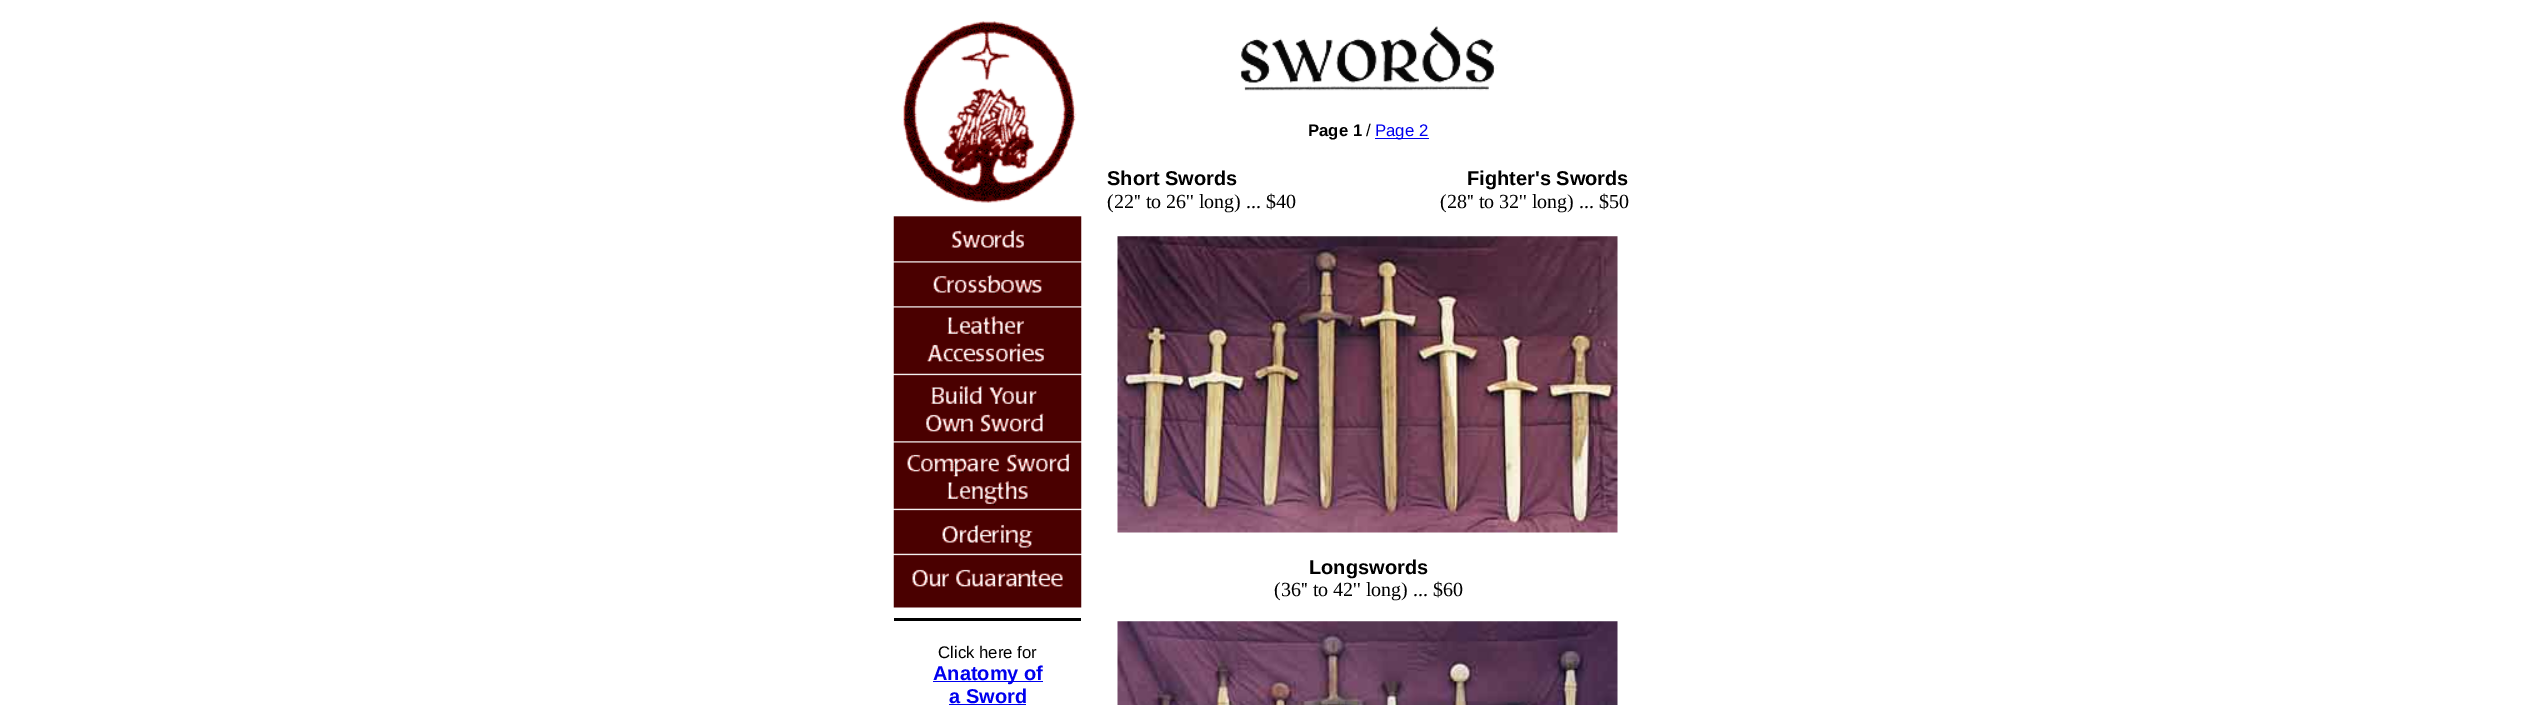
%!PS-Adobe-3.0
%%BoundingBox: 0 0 2529 705
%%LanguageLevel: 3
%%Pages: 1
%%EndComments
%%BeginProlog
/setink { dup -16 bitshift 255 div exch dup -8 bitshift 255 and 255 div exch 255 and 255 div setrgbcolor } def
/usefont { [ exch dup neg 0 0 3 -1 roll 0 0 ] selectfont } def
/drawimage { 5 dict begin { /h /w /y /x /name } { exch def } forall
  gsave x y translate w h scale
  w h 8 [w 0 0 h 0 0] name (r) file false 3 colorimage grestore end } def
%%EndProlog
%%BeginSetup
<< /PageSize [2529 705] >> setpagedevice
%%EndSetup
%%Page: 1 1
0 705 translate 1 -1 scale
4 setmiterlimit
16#FFFFFF setink
0 0 2529 705 rectfill
(img1.raw) 1240 26 259 65 drawimage
/LiberationSans-Bold 16.75 usefont
16#000000 setink
1308 136 moveto (Page 1) show
/LiberationSans-Regular 16.75 usefont
1366 136 moveto (/) show
16#0000EE setink
1375 138 54 1 rectfill
1375 136 moveto (Page 2) show
/LiberationSans-Bold 20 usefont
16#000000 setink
1107 185 moveto (Short Swords) show
/LiberationSerif-Regular 20 usefont
1107 208 moveto (\(22'' to 26'' long\) ... $40) show
/LiberationSans-Bold 20 usefont
1467 185 moveto (Fighter's Swords) show
/LiberationSerif-Regular 20 usefont
1440 208 moveto (\(28'' to 32'' long\) ... $50) show
(img2.raw) 1117 236 501 297 drawimage
/LiberationSans-Bold 20 usefont
1309 574 moveto (Longswords) show
/LiberationSerif-Regular 20 usefont
1274 596 moveto (\(36'' to 42'' long\) ... $60) show
(img3.raw) 1117 621 501 84 drawimage
(img4.raw) 893 21 189 587 drawimage
894 618 187 3 rectfill
/LiberationSans-Regular 16.75 usefont
938 658 moveto (Click here for) show
16#0000EE setink
933 681 110 1 rectfill
/LiberationSans-Bold 20 usefont
933 680 moveto (Anatomy of) show
949 703 moveto (a Sword) show
949 704 77 1 rectfill
showpage
%%EOF
